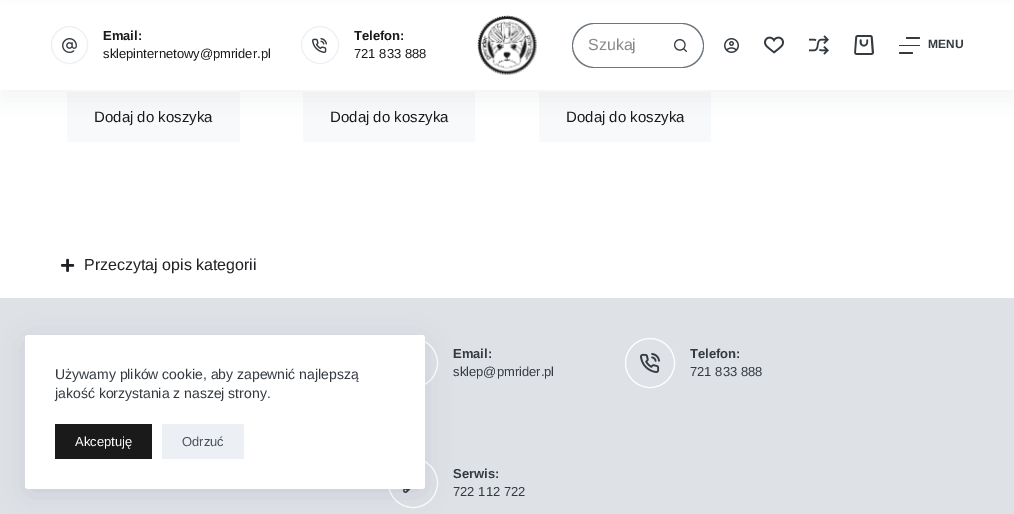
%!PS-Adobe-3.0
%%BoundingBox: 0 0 1014 514
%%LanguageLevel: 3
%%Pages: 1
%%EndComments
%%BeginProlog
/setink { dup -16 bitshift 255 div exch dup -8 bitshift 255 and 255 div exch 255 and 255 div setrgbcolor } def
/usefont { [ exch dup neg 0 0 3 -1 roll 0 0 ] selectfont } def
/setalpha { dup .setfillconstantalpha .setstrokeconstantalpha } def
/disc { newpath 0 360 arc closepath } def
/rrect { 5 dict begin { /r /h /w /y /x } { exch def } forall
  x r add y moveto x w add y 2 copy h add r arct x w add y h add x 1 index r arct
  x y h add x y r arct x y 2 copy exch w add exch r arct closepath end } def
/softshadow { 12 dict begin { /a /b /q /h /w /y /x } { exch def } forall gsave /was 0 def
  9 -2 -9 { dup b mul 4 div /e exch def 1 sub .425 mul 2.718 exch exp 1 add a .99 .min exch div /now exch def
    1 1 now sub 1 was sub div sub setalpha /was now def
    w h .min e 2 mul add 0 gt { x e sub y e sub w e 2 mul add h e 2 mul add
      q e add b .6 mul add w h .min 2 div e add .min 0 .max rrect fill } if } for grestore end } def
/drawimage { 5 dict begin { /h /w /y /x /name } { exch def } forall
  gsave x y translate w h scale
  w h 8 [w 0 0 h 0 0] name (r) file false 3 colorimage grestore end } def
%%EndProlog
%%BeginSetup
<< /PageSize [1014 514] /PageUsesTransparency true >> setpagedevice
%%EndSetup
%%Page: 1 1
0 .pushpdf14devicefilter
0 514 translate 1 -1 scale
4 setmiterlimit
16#FFFFFF setink
0 0 1014 514 rectfill
[
    [67 92 173 50 16#F8F9FA]
    [303 92 172 50 16#F8F9FA]
    [539 92 172 50 16#F8F9FA]
] { aload pop setink rectfill } forall
16#2C3E50 setink
0 10 1014 90 0 10 0.05 softshadow
16#FFFFFF setink
0 3 1014 87 rectfill
16#EDEFF2 setink
51.5 26.5 36 37 18 rrect stroke
(img1.raw) 62 38 15 15 drawimage
/LiberationSans-Bold 13 usefont
16#1A1A1A setink
103 40 moveto (Email:) show
/LiberationSans-Regular 13 usefont
103 58 moveto (sklepinternetowy@pmrider.pl) show
16#EDEFF2 setink
320 45 18.5 disc stroke
(img2.raw) 312 38 15 15 drawimage
/LiberationSans-Bold 13 usefont
16#1A1A1A setink
354 40 moveto (Telefon:) show
/LiberationSans-Regular 13 usefont
354 58 moveto (721 833 888) show
(img3.raw) 477 15 60 60 drawimage
16#6C757D setink
594 23 moveto 659 23 lineto 659 68 lineto 594 68 lineto 582 68 572 58 572 46 curveto 572 33 582 23 594 23 curveto closepath 594 24 moveto 659 24 lineto 659 67 lineto 594 67 lineto 583 67 573 57 573 46 curveto 573 34 583 24 594 24 curveto closepath eofill
/LiberationSans-Regular 16 usefont
16#85898C setink
588 50 moveto (Szukaj) show
16#6C757D setink
659 23 moveto 682 23 lineto 694 23 704 33 704 46 curveto 704 58 694 68 682 68 curveto 659 68 lineto closepath 659 24 moveto 682 24 lineto 693 24 703 34 703 46 curveto 703 57 693 67 682 67 curveto 659 67 lineto closepath eofill
(img4.raw) 674 39 13 13 drawimage
(img5.raw) 724 38 15 15 drawimage
(img6.raw) 764 36 20 18 drawimage
(img7.raw) 809 35 20 20 drawimage
(img8.raw) 854 35 20 20 drawimage
16#343A40 setink
906 37 14 2 1 rrect fill
899 45 21 1 0.5 rrect fill
899 52 14 2 1 rrect fill
/LiberationSans-Bold 12 usefont
928 48 moveto (MENU) show
/LiberationSans-Regular 15 usefont
16#1A1A1A setink
[
    [(Dodaj do koszyka) 94 122]
    [(Dodaj do koszyka) 330 122]
    [(Dodaj do koszyka) 566 122]
] { aload pop moveto show } forall
(img9.raw) 61 258 14 14 drawimage
/LiberationSans-Regular 16 usefont
16#1F2124 setink
84 270 moveto (Przeczytaj opis kategorii) show
16#DEE2E6 setink
0 298 1014 216 rectfill
16#FFFFFF setink
413 363 24.5 disc stroke
/LiberationSans-Bold 13 usefont
16#343A40 setink
453 358 moveto (Email:) show
/LiberationSans-Regular 13 usefont
453 376 moveto (sklep@pmrider.pl) show
16#FFFFFF setink
650 363 24.5 disc stroke
(img10.raw) 640 353 20 20 drawimage
/LiberationSans-Bold 13 usefont
16#343A40 setink
690 358 moveto (Telefon:) show
/LiberationSans-Regular 13 usefont
690 376 moveto (721 833 888) show
16#FFFFFF setink
413 483 24.5 disc stroke
(img11.raw) 403 489 8 4 drawimage
/LiberationSans-Bold 13 usefont
16#343A40 setink
453 478 moveto (Serwis:) show
/LiberationSans-Regular 13 usefont
453 496 moveto (722 112 722) show
16#223865 setink
30 345 390 144 0 15 0.15 softshadow
16#FFFFFF setink
25 335 400 154 3 rrect fill
/LiberationSans-Regular 14 usefont
16#343A40 setink
55 379 moveto (Używamy plików cookie, aby zapewnić najlepszą) show
55 398 moveto (jakość korzystania z naszej strony.) show
16#1A1A1A setink
55 424 97 35 rectfill
/LiberationSans-Regular 13 usefont
16#FFFFFF setink
75 446 moveto (Akceptuję) show
16#ECEFF3 setink
162 424 82 35 rectfill
16#495057 setink
182 446 moveto (Odrzuć) show
.poppdf14devicefilter showpage
%%EOF
